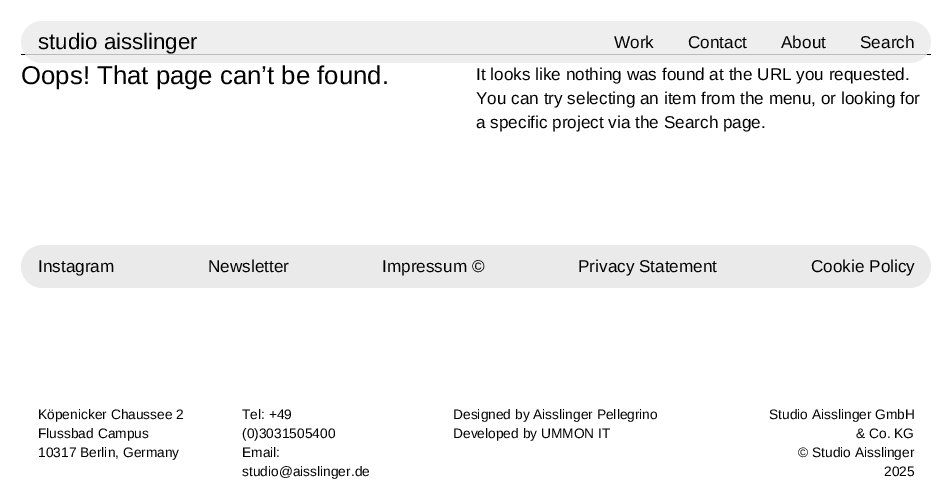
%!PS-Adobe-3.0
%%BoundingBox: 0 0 952 502
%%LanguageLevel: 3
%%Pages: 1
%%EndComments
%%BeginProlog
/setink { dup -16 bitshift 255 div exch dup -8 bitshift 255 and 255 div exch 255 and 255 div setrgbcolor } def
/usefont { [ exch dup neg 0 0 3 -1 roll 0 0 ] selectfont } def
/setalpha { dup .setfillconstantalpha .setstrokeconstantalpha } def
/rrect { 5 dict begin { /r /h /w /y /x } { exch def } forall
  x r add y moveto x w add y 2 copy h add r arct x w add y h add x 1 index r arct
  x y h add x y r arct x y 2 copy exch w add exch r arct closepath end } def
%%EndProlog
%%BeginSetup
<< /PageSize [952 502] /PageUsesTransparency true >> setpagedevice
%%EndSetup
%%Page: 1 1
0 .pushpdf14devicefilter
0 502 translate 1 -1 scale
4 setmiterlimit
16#FFFFFF setink
0 0 952 502 rectfill
16#000000 setink
21 54 910 1 rectfill
0.8 setalpha
16#EAEAEA setink
21 21 910 42 21 rrect fill
/LiberationSans-Regular 22.25 usefont
1 setalpha
16#000000 setink
38 49 moveto (studio aisslinger) show
/LiberationSans-Regular 17.15 usefont
[
    [(Work) 614 48]
    [(Contact) 688 48]
    [(About) 781 48]
    [(Search) 860 48]
] { aload pop moveto show } forall
/LiberationSans-Regular 25.75 usefont
21 84 moveto (Oops! That page can’t be found.) show
/LiberationSans-Regular 17.15 usefont
[
    [(It looks like nothing was found at the URL you requested.) 476 80]
    [(You can try selecting an item from the menu, or looking for) 476 104]
    [(a specific project via the Search page.) 476 128]
] { aload pop moveto show } forall
16#EAEAEA setink
21 245 910 43 21.5 rrect fill
16#000000 setink
[
    [(Instagram) 38 272]
    [(Newsletter) 208 272]
    [(Impressum ©) 382 272]
    [(Privacy Statement) 578 272]
    [(Cookie Policy) 811 272]
] { aload pop moveto show } forall
/LiberationSans-Regular 13.75 usefont
[
    [(Köpenicker Chaussee 2) 38 419]
    [(Flussbad Campus) 38 438]
    [(10317 Berlin, Germany) 38 457]
    [(Tel: +49) 242 419]
    [(\(0\)3031505400) 242 438]
    [(Email:) 242 457]
    [(studio@aisslinger.de) 242 476]
    [(Designed by Aisslinger Pellegrino) 453 419]
    [(Developed by UMMON IT) 453 438]
    [(Studio Aisslinger GmbH) 769 419]
    [(& Co. KG) 856 438]
    [(© Studio Aisslinger) 798 457]
    [(2025) 884 476]
] { aload pop moveto show } forall
.poppdf14devicefilter showpage
%%EOF
